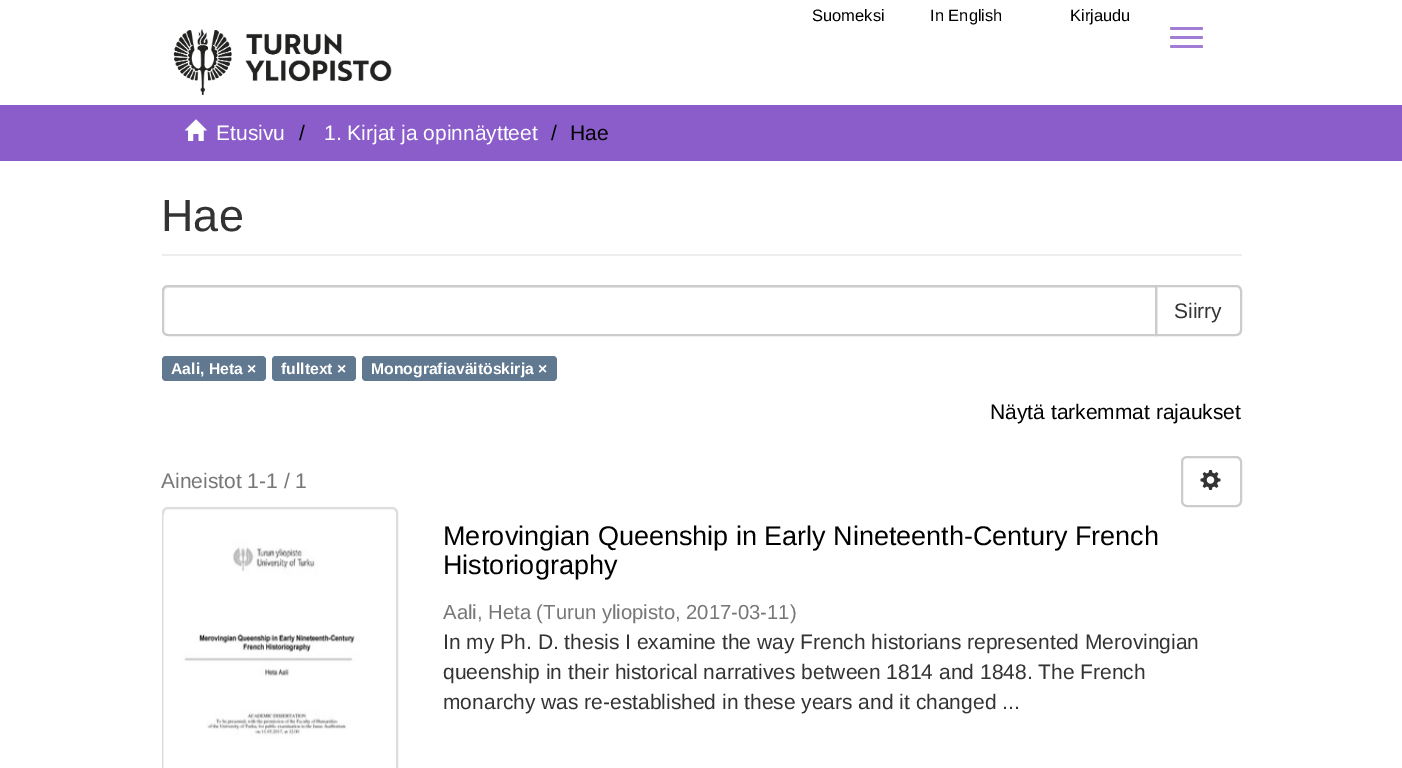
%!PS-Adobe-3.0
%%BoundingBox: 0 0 1402 768
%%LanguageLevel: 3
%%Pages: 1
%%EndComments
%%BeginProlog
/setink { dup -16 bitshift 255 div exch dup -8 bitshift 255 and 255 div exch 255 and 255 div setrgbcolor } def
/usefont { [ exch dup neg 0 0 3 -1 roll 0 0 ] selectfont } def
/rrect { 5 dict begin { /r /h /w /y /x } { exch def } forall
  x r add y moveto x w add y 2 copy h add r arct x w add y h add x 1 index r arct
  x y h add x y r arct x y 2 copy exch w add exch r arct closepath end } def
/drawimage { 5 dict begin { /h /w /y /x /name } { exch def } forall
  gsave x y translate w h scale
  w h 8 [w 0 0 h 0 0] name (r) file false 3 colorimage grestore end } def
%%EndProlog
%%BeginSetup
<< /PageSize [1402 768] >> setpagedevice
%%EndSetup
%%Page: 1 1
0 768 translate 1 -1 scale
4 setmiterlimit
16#FFFFFF setink
0 0 1402 768 rectfill
/LiberationSans-Regular 16.5 usefont
16#000000 setink
[
    [(Suomeksi) 812 21]
    [(In English) 930 21]
    [(Kirjaudu) 1070 21]
] { aload pop moveto show } forall
16#A27DD5 setink
1170 27 33 3 1.5 rrect fill
1170 36 33 3 1.5 rrect fill
1170 45 33 3 1.5 rrect fill
(img1.raw) 173 29 219 66 drawimage
16#8B5DCB setink
0 105 1402 56 rectfill
(img2.raw) 184 119 24 22 drawimage
/LiberationSans-Regular 21 usefont
16#FFFFFF setink
216 140 moveto (Etusivu) show
16#000000 setink
299 140 moveto (/) show
16#FFFFFF setink
324 140 moveto (1. Kirjat ja opinnäytteet) show
16#000000 setink
551 140 moveto (/) show
570 140 moveto (Hae) show
16#EEEEEE setink
162 254 1080 2 rectfill
/LiberationSans-Regular 45 usefont
16#333333 setink
161 231 moveto (Hae) show
16#CCCCCC setink
2 setlinewidth
1156 286 moveto 1236 286 lineto 1239 286 1241 288 1241 291 curveto 1241 330 lineto 1241 333 1239 335 1236 335 curveto 1156 335 lineto closepath stroke
16#FFFFFF setink
168 285 moveto 1157 285 lineto 1157 336 lineto 168 336 lineto 164.5 336 162 333.5 162 330 curveto 162 291 lineto 162 287.5 164.5 285 168 285 curveto closepath fill
16#ECECEC setink
168 288 moveto 1155 288 lineto 1155 287 lineto 169 287 lineto 166 287 164 289 164 292 curveto 164 290 166 288 168 288 curveto closepath fill
16#CCCCCC setink
168 286 moveto 1156 286 lineto 1156 335 lineto 168 335 lineto 165 335 163 333 163 330 curveto 163 291 lineto 163 288 165 286 168 286 curveto closepath stroke
/LiberationSans-Regular 21 usefont
16#333333 setink
1174 318 moveto (Siirry) show
16#607890 setink
162 356 104 25 4 rrect fill
/LiberationSans-Bold 15.75 usefont
16#FFFFFF setink
171 374 moveto (Aali, Heta ×) show
16#607890 setink
272 356 84 25 4 rrect fill
16#FFFFFF setink
281 374 moveto (fulltext ×) show
16#607890 setink
362 356 195 25 4 rrect fill
16#FFFFFF setink
371 374 moveto (Monografiaväitöskirja ×) show
/LiberationSans-Regular 21 usefont
16#000000 setink
990 419 moveto (Näytä tarkemmat rajaukset) show
16#777777 setink
161 488 moveto (Aineistot 1-1 / 1) show
16#CCCCCC setink
1182 457 59 49 5 rrect stroke
(img3.raw) 1200 469 21 21 drawimage
16#DDDDDD setink
163 508 234 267 5 rrect stroke
(img4.raw) 163 515 197 253 drawimage
/LiberationSans-Regular 27 usefont
16#000000 setink
443 545 moveto (Merovingian Queenship in Early Nineteenth-Century French) show
443 574 moveto (Historiography) show
/LiberationSans-Regular 20.25 usefont
16#777777 setink
443 619 moveto (Aali, Heta \(Turun yliopisto, 2017-03-11\)) show
/LiberationSans-Regular 21 usefont
16#333333 setink
[
    [(In my Ph. D. thesis I examine the way French historians represented Merovingian) 443 649]
    [(queenship in their historical narratives between 1814 and 1848. The French) 443 679]
    [(monarchy was re-established in these years and it changed ...) 443 709]
] { aload pop moveto show } forall
showpage
%%EOF
